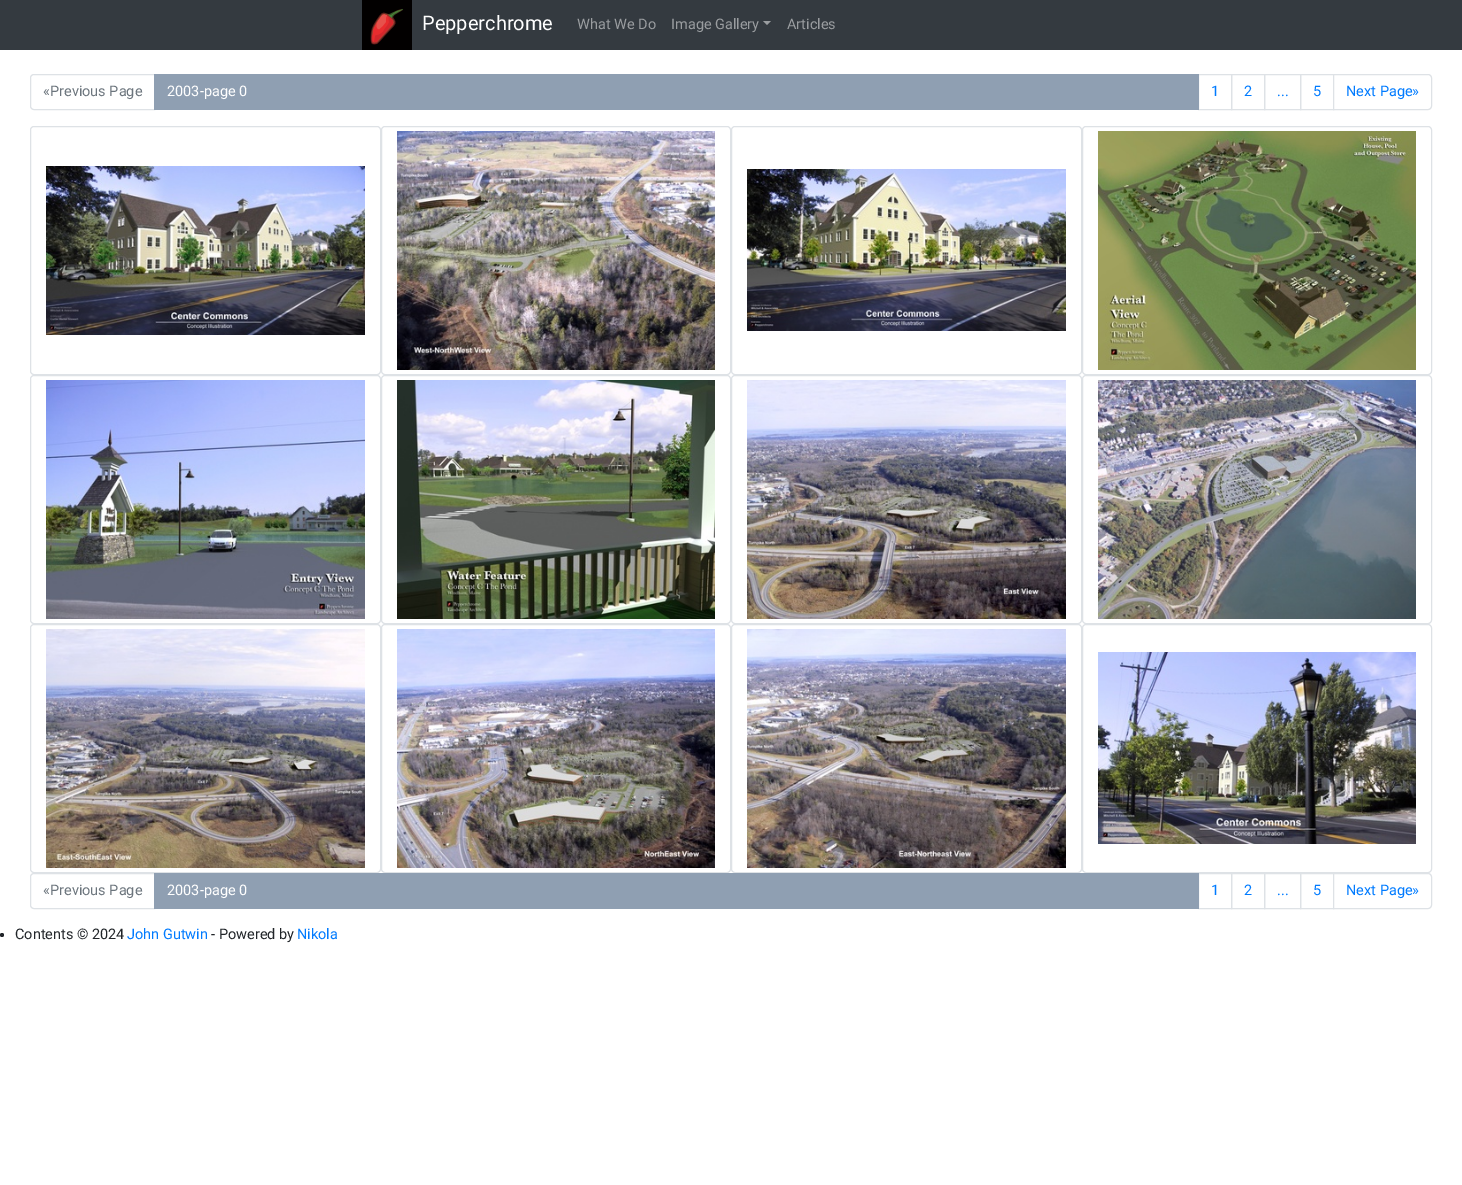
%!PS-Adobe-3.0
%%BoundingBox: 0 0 1462 1185
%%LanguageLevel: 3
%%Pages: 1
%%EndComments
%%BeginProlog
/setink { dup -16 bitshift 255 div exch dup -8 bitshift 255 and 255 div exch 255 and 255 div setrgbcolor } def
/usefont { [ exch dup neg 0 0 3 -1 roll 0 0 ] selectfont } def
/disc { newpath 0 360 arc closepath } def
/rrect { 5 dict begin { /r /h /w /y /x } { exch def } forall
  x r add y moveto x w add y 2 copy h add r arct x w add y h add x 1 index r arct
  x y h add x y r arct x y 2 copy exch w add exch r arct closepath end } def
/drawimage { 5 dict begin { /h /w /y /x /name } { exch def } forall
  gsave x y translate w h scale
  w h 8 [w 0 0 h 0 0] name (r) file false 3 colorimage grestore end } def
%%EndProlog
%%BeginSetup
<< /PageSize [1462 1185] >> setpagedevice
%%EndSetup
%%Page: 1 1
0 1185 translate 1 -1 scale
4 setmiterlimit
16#FFFFFF setink
0 0 1462 1185 rectfill
16#343A40 setink
0 0 1462 50 rectfill
(img1.raw) 362 0 50 50 drawimage
/Roboto-Regular 20 usefont
16#FFFFFF setink
422 30 moveto (Pepperchrome) show
/Roboto-Regular 14.5 usefont
16#9A9DA0 setink
577 29 moveto (What We Do) show
671 29 moveto (Image Gallery) show
763 21 moveto 771 21 lineto 767 25 lineto closepath fill
787 29 moveto (Articles) show
16#DEE2E6 setink
34 74.5 moveto 154.5 74.5 lineto 154.5 109.5 lineto 34 109.5 lineto 32 109.5 30.5 108 30.5 106 curveto 30.5 78 lineto 30.5 76 32 74.5 34 74.5 curveto closepath stroke
16#6C757D setink
43 96 moveto («Previous Page) show
16#DEE2E6 setink
1198.5 74.5 33 35 rectstroke
16#8F9FB2 setink
154 74 1045 36 rectfill
16#FFFFFF setink
167 96 moveto (2003-page 0) show
16#007BFF setink
1211 96 moveto (1) show
16#DEE2E6 setink
1231.5 74.5 33 35 rectstroke
16#007BFF setink
1244 96 moveto (2) show
16#DEE2E6 setink
1264.5 74.5 36 35 rectstroke
16#007BFF setink
1277 96 moveto (...) show
16#DEE2E6 setink
1300.5 74.5 33 35 rectstroke
16#007BFF setink
1313 96 moveto (5) show
16#FFFFFF setink
1333.5 74.5 moveto 1428 74.5 lineto 1430 74.5 1431.5 76 1431.5 78 curveto 1431.5 106 lineto 1431.5 108 1430 109.5 1428 109.5 curveto 1333.5 109.5 lineto closepath gsave fill grestore
16#DEE2E6 setink
stroke
16#007BFF setink
1346 96 moveto (Next Page») show
16#DEE2E6 setink
30.5 126.5 350 248 3.5 rrect stroke
(img2.raw) 46 166 319 169 drawimage
381.5 126.5 349 248 3.5 rrect stroke
(img3.raw) 397 131 318 239 drawimage
731.5 126.5 350 248 3.5 rrect stroke
(img4.raw) 747 169 319 162 drawimage
1082.5 126.5 349 248 3.5 rrect stroke
(img5.raw) 1098 131 318 239 drawimage
30.5 375.5 350 248 3.5 rrect stroke
(img6.raw) 46 380 319 239 drawimage
381.5 375.5 349 248 3.5 rrect stroke
(img7.raw) 397 380 318 239 drawimage
731.5 375.5 350 248 3.5 rrect stroke
(img8.raw) 747 380 319 239 drawimage
1082.5 375.5 349 248 3.5 rrect stroke
(img9.raw) 1098 380 318 239 drawimage
30.5 624.5 350 248 3.5 rrect stroke
(img10.raw) 46 629 319 239 drawimage
381.5 624.5 349 248 3.5 rrect stroke
(img11.raw) 397 629 318 239 drawimage
731.5 624.5 350 248 3.5 rrect stroke
(img12.raw) 747 629 319 239 drawimage
1082.5 624.5 349 248 3.5 rrect stroke
(img13.raw) 1098 652 318 192 drawimage
34 873.5 moveto 154.5 873.5 lineto 154.5 908.5 lineto 34 908.5 lineto 32 908.5 30.5 907 30.5 905 curveto 30.5 877 lineto 30.5 875 32 873.5 34 873.5 curveto closepath stroke
16#6C757D setink
43 895 moveto («Previous Page) show
16#DEE2E6 setink
1198.5 873.5 33 35 rectstroke
16#8F9FB2 setink
154 873 1045 36 rectfill
16#FFFFFF setink
167 895 moveto (2003-page 0) show
16#007BFF setink
1211 895 moveto (1) show
16#DEE2E6 setink
1231.5 873.5 33 35 rectstroke
16#007BFF setink
1244 895 moveto (2) show
16#DEE2E6 setink
1264.5 873.5 36 35 rectstroke
16#007BFF setink
1277 895 moveto (...) show
16#DEE2E6 setink
1300.5 873.5 33 35 rectstroke
16#007BFF setink
1313 895 moveto (5) show
16#FFFFFF setink
1333.5 873.5 moveto 1428 873.5 lineto 1430 873.5 1431.5 875 1431.5 877 curveto 1431.5 905 lineto 1431.5 907 1430 908.5 1428 908.5 curveto 1333.5 908.5 lineto closepath gsave fill grestore
16#DEE2E6 setink
stroke
16#007BFF setink
1346 895 moveto (Next Page») show
16#212529 setink
2 935 2 disc fill
15 939 moveto (Contents © 2024) show
16#007BFF setink
127 939 moveto (John Gutwin) show
16#212529 setink
211 939 moveto (- Powered by) show
16#007BFF setink
297 939 moveto (Nikola) show
showpage
%%EOF
